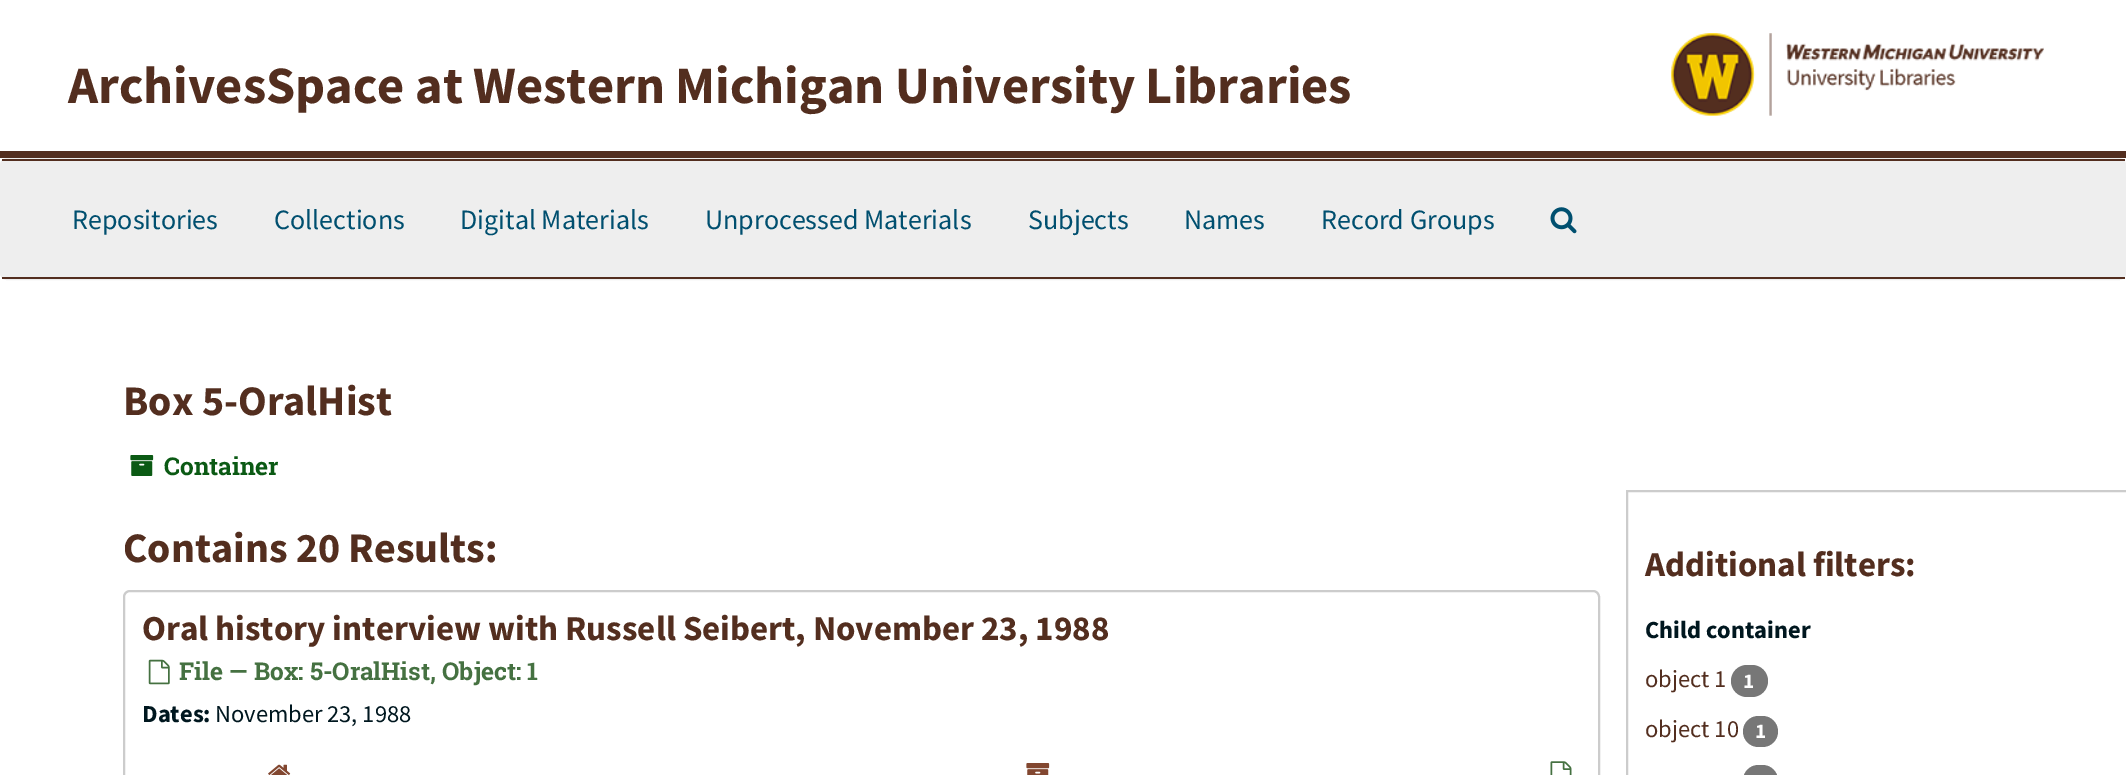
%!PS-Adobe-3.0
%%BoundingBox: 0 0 2126 775
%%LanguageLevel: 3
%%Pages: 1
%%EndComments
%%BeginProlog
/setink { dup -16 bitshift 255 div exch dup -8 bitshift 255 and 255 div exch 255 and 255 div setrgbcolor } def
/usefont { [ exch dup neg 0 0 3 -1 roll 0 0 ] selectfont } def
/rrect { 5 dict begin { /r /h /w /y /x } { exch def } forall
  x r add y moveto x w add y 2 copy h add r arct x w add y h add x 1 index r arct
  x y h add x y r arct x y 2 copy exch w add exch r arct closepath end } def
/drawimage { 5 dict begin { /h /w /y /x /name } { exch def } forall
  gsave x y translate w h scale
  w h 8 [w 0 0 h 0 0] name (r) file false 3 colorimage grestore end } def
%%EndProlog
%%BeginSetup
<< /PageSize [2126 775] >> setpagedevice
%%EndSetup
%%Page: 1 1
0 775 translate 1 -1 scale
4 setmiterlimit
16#FFFFFF setink
0 0 2126 775 rectfill
16#532E1F setink
0 151 2126 7 rectfill
/SourceSansPro-Bold 52.5 usefont
68 103 moveto (ArchivesSpace at Western Michigan University Libraries) show
(img1.raw) 1671 33 373 83 drawimage
16#EEEEEE setink
2 setlinewidth
1 159 2124 120 6 rrect stroke
[
    [2 161 2122 116 16#EEEEEE]
    [2 159 2123 2 16#532E1F]
    [2 277 2123 2 16#532E1F]
] { aload pop setink rectfill } forall
/SourceSansPro-Regular 28 usefont
16#004F6F setink
[
    [(Repositories) 72 229]
    [(Collections) 274 229]
    [(Digital Materials) 460 229]
    [(Unprocessed Materials) 705 229]
    [(Subjects) 1028 229]
    [(Names) 1184 229]
    [(Record Groups) 1321 229]
] { aload pop moveto show } forall
(img2.raw) 1550 207 27 27 drawimage
/SourceSansPro-Bold 42 usefont
16#532E1F setink
123 415 moveto (Box 5-OralHist) show
(img3.raw) 130 455 24 21 drawimage
/RobotoSlab-Bold 24.5 usefont
16#0B5A14 setink
164 475 moveto (Container) show
/SourceSansPro-Bold 42 usefont
16#532E1F setink
123 562 moveto (Contains 20 Results:) show
16#CCCCCC setink
124 591 1475 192 6 rrect stroke
/SourceSansPro-Bold 35 usefont
16#532E1F setink
142 640 moveto (Oral history interview with Russell Seibert, November 23, 1988) show
(img4.raw) 148 659 22 26 drawimage
/RobotoSlab-Bold 24.5 usefont
16#457141 setink
179 680 moveto (File — Box: 5-OralHist, Object: 1) show
/SourceSansPro-Bold 24.5 usefont
16#00171F setink
142 722 moveto (Dates:) show
/SourceSansPro-Regular 24.5 usefont
215 722 moveto (November 23, 1988) show
(img5.raw) 268 764 23 11 drawimage
(img6.raw) 1026 763 24 12 drawimage
(img7.raw) 1550 761 22 14 drawimage
16#CCCCCC setink
1627 491 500 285 rectstroke
/SourceSansPro-Bold 35 usefont
16#532E1F setink
1645 576 moveto (Additional filters:) show
/SourceSansPro-Bold 24.5 usefont
16#00171F setink
1645 638 moveto (Child container) show
/SourceSansPro-Regular 24.5 usefont
16#532E1F setink
1645 687 moveto (object 1) show
16#777777 setink
1731 665 37 32 16 rrect fill
/SourceSansPro-Bold 21 usefont
16#FFFFFF setink
1743 688 moveto (1) show
/SourceSansPro-Regular 24.5 usefont
16#532E1F setink
1645 737 moveto (object 10) show
16#777777 setink
1743 716 35 31 15.5 rrect fill
/SourceSansPro-Bold 21 usefont
16#FFFFFF setink
1755 738 moveto (1) show
16#777777 setink
1743 765 35 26 15.5 rrect fill
showpage
%%EOF
